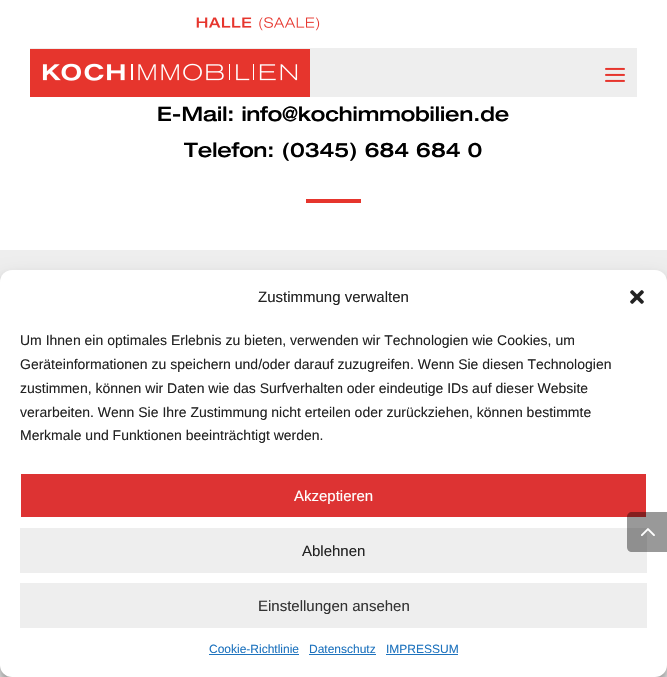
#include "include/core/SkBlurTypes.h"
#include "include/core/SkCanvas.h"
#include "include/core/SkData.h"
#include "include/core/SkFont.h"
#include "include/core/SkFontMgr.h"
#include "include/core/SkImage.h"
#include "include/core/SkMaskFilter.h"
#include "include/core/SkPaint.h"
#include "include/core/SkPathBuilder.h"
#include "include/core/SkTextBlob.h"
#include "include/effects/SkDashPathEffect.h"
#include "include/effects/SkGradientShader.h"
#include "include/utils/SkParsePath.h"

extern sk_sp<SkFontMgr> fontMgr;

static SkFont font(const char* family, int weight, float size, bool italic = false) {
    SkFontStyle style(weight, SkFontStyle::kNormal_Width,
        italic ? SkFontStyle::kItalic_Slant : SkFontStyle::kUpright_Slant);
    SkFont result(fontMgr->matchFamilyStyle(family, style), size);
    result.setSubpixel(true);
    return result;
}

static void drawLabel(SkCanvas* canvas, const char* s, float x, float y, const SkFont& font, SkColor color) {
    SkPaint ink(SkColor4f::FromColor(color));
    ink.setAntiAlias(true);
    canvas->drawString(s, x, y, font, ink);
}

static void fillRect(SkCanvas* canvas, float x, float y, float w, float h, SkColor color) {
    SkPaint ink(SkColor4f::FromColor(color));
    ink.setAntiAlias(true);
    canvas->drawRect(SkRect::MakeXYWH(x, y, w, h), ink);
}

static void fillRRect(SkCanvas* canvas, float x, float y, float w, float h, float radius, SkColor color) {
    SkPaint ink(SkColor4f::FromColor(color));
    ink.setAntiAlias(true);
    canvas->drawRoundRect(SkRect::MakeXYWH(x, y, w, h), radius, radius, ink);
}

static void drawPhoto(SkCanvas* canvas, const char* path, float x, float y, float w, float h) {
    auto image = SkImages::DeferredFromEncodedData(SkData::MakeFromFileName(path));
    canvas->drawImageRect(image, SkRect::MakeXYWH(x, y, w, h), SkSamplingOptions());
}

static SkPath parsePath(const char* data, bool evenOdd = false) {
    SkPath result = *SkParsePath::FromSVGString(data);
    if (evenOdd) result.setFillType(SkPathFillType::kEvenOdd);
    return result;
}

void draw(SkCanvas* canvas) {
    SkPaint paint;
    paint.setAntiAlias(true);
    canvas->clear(0xFFFFFFFF);
    drawPhoto(canvas, "assets/img1.png", 196, 17, 124, 14);
    fillRect(canvas, 30, 48, 607, 49, 0xFFEEEEEE);
    drawPhoto(canvas, "assets/img2.png", 30, 49, 280, 48);
    drawPhoto(canvas, "assets/img3.png", 605, 67, 20, 15);
    SkFont font1 = font("Helvetica Neue", 500, 20);
    drawLabel(canvas, "E-Mail: info@kochimmobilien.de", 157, 121, font1, 0xFF000000);
    drawLabel(canvas, "Telefon: (0345) 684 684 0", 184, 157, font1, 0xFF000000);
    fillRect(canvas, 306, 199, 55, 4, 0xFFE6352D);
    fillRect(canvas, 0, 250, 667, 427, 0xFFEEEEEE);
    paint.setColor(0x3B000000);
    paint.setMaskFilter(SkMaskFilter::MakeBlur(kNormal_SkBlurStyle, 3));
    canvas->drawRoundRect(SkRect::MakeXYWH(0, 276, 667, 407), 12, 12, paint);
    paint.setMaskFilter(nullptr);
    paint.setColor(0x30000000);
    paint.setMaskFilter(SkMaskFilter::MakeBlur(kNormal_SkBlurStyle, 10));
    canvas->drawRoundRect(SkRect::MakeXYWH(0, 280, 667, 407), 12, 12, paint);
    paint.setMaskFilter(nullptr);
    fillRRect(canvas, 0, 270, 667, 407, 12, 0xFFFFFFFF);
    SkFont font2 = font("Liberation Sans", 400, 15);
    drawLabel(canvas, "Zustimmung verwalten", 258, 302, font2, 0xFF222222);
    drawPhoto(canvas, "assets/img4.png", 630, 290, 14, 14);
    SkFont font3 = font("Liberation Sans", 400, 14);
    drawLabel(canvas, "Um Ihnen ein optimales Erlebnis zu bieten, verwenden wir Technologien wie Cookies, um", 20, 345, font3, 0xFF222222);
    drawLabel(canvas, "Geräteinformationen zu speichern und/oder darauf zuzugreifen. Wenn Sie diesen Technologien", 20, 369, font3, 0xFF222222);
    drawLabel(canvas, "zustimmen, können wir Daten wie das Surfverhalten oder eindeutige IDs auf dieser Website", 20, 393, font3, 0xFF222222);
    drawLabel(canvas, "verarbeiten. Wenn Sie Ihre Zustimmung nicht erteilen oder zurückziehen, können bestimmte", 20, 417, font3, 0xFF222222);
    drawLabel(canvas, "Merkmale und Funktionen beeinträchtigt werden.", 20, 440, font3, 0xFF222222);
    fillRect(canvas, 21, 474, 625, 43, 0xFFDD3333);
    drawLabel(canvas, "Akzeptieren", 294, 501, font2, 0xFFFFFFFF);
    fillRect(canvas, 20, 528, 627, 45, 0xFFEEEEEE);
    drawLabel(canvas, "Ablehnen", 302, 556, font2, 0xFF222222);
    fillRect(canvas, 20, 583, 627, 45, 0xFFEEEEEE);
    drawLabel(canvas, "Einstellungen ansehen", 258, 611, font2, 0xFF333333);
    SkFont font4 = font("Liberation Sans", 400, 12);
    drawLabel(canvas, "Cookie-Richtlinie", 209, 653, font4, 0xFF1E73BE);
    fillRect(canvas, 209, 654, 90, 1, 0xFF1E73BE);
    drawLabel(canvas, "Datenschutz", 309, 653, font4, 0xFF1E73BE);
    fillRect(canvas, 309, 654, 67, 1, 0xFF1E73BE);
    drawLabel(canvas, "IMPRESSUM", 386, 653, font4, 0xFF1E73BE);
    fillRect(canvas, 386, 654, 72, 1, 0xFF1E73BE);
    paint.setColor(0x66000000);
    canvas->drawPath(parsePath("M632 512H667V552H632C629 552 627 550 627 547V517C627 514 629 512 632 512Z"), paint);
    drawPhoto(canvas, "assets/img5.png", 641, 528, 14, 8);
}
